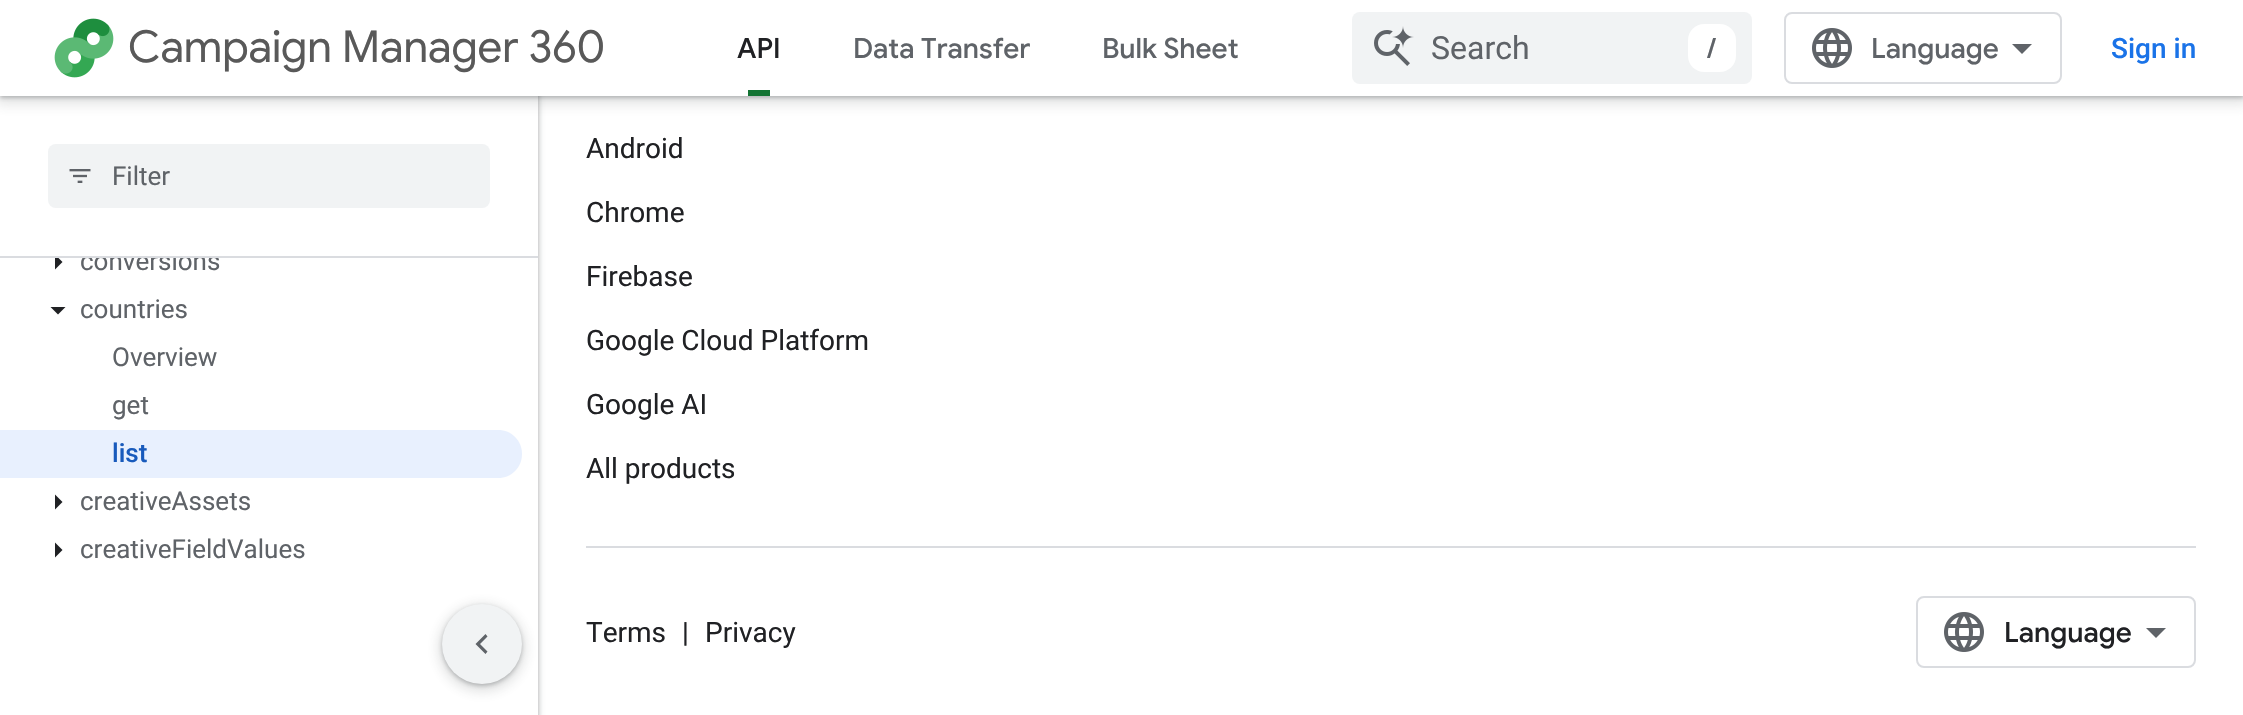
#include "include/core/SkBlurTypes.h"
#include "include/core/SkCanvas.h"
#include "include/core/SkData.h"
#include "include/core/SkFont.h"
#include "include/core/SkFontMgr.h"
#include "include/core/SkImage.h"
#include "include/core/SkMaskFilter.h"
#include "include/core/SkPaint.h"
#include "include/core/SkPathBuilder.h"
#include "include/core/SkTextBlob.h"
#include "include/effects/SkDashPathEffect.h"
#include "include/effects/SkGradientShader.h"
#include "include/utils/SkParsePath.h"

extern sk_sp<SkFontMgr> fontMgr;

static SkFont font(const char* family, int weight, float size, bool italic = false) {
    SkFontStyle style(weight, SkFontStyle::kNormal_Width,
        italic ? SkFontStyle::kItalic_Slant : SkFontStyle::kUpright_Slant);
    SkFont result(fontMgr->matchFamilyStyle(family, style), size);
    result.setSubpixel(true);
    return result;
}

static void drawLabel(SkCanvas* canvas, const char* s, float x, float y, const SkFont& font, SkColor color) {
    SkPaint ink(SkColor4f::FromColor(color));
    ink.setAntiAlias(true);
    canvas->drawString(s, x, y, font, ink);
}

static void fillRect(SkCanvas* canvas, float x, float y, float w, float h, SkColor color) {
    SkPaint ink(SkColor4f::FromColor(color));
    ink.setAntiAlias(true);
    canvas->drawRect(SkRect::MakeXYWH(x, y, w, h), ink);
}

static void fillRRect(SkCanvas* canvas, float x, float y, float w, float h, float radius, SkColor color) {
    SkPaint ink(SkColor4f::FromColor(color));
    ink.setAntiAlias(true);
    canvas->drawRoundRect(SkRect::MakeXYWH(x, y, w, h), radius, radius, ink);
}

static void drawPhoto(SkCanvas* canvas, const char* path, float x, float y, float w, float h) {
    auto image = SkImages::DeferredFromEncodedData(SkData::MakeFromFileName(path));
    canvas->drawImageRect(image, SkRect::MakeXYWH(x, y, w, h), SkSamplingOptions());
}

static SkPath parsePath(const char* data, bool evenOdd = false) {
    SkPath result = *SkParsePath::FromSVGString(data);
    if (evenOdd) result.setFillType(SkPathFillType::kEvenOdd);
    return result;
}

void draw(SkCanvas* canvas) {
    SkPaint paint;
    paint.setAntiAlias(true);
    canvas->clear(0xFFFFFFFF);
    paint.setColor(0x263C4043);
    paint.setMaskFilter(SkMaskFilter::MakeBlur(kNormal_SkBlurStyle, 3));
    canvas->drawRect(SkRect::MakeXYWH(-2, 0, 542, 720), paint);
    paint.setMaskFilter(nullptr);
    paint.setColor(0x4D3C4043);
    paint.setMaskFilter(SkMaskFilter::MakeBlur(kNormal_SkBlurStyle, 2));
    canvas->drawRect(SkRect::MakeXYWH(0, 2, 538, 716), paint);
    paint.setMaskFilter(nullptr);
    fillRect(canvas, 0, 258, 538, 457, 0xFFFFFFFF);
    paint.setColor(0xFF202124);
    canvas->drawPath(parsePath("M55 269.5V254.5L62.5 262Z"), paint);
    SkFont font1 = font("Roboto", 400, 26);
    drawLabel(canvas, "conversions", 80, 270, font1, 0xFF5F6368);
    fillRect(canvas, 0, 96, 538, 160, 0xFFFFFFFF);
    paint.setColor(0x263C4043);
    paint.setMaskFilter(SkMaskFilter::MakeBlur(kNormal_SkBlurStyle, 6));
    canvas->drawRect(SkRect::MakeXYWH(-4, -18, 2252, 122), paint);
    paint.setMaskFilter(nullptr);
    paint.setColor(0x4D3C4043);
    paint.setMaskFilter(SkMaskFilter::MakeBlur(kNormal_SkBlurStyle, 2));
    canvas->drawRect(SkRect::MakeXYWH(0, -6, 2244, 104), paint);
    paint.setMaskFilter(nullptr);
    fillRect(canvas, 0, 0, 2243, 96, 0xFFFFFFFF);
    drawPhoto(canvas, "assets/img1.png", 54, 18, 60, 60);
    SkFont font2 = font("Google Sans", 400, 44);
    drawLabel(canvas, "Campaign Manager 360", 128, 62, font2, 0xFF595959);
    SkFont font3 = font("Google Sans", 500, 28);
    drawLabel(canvas, "API", 737, 58, font3, 0xFF202124);
    fillRect(canvas, 748, 90, 22, 6, 0xFF137333);
    drawLabel(canvas, "Data Transfer", 853, 58, font3, 0xFF5F6368);
    drawLabel(canvas, "Bulk Sheet", 1102, 58, font3, 0xFF5F6368);
    fillRRect(canvas, 1352, 12, 400, 72, 8, 0xFFF1F3F4);
    drawPhoto(canvas, "assets/img2.png", 1374, 26, 40, 40);
    SkFont font4 = font("Roboto", 400, 32);
    drawLabel(canvas, "Search", 1431, 59, font4, 0xFF5F6368);
    fillRRect(canvas, 1688, 24, 48, 48, 16, 0xFFFFFFFF);
    drawLabel(canvas, "/", 1707, 58, font3, 0xFF5F6368);
    paint.setStroke(true);
    paint.setStrokeWidth(2);
    paint.setColor(0xFFDADCE0);
    canvas->drawRoundRect(SkRect::MakeXYWH(1785, 13, 276, 70), 7, 7, paint);
    drawPhoto(canvas, "assets/img3.png", 1812, 28, 40, 40);
    drawLabel(canvas, "Language", 1871, 58, font3, 0xFF5F6368);
    paint.setStroke(false);
    paint.setColor(0xFF5F6368);
    canvas->drawPath(parsePath("M2022 54L2012 44H2032Z"), paint);
    SkFont font5 = font("Roboto", 500, 28);
    drawLabel(canvas, "Sign in", 2111, 58, font5, 0xFF1A73E8);
    fillRect(canvas, 0, 256, 538, 2, 0xFFDADCE0);
    fillRRect(canvas, 48, 144, 442, 64, 8, 0xFFF1F3F4);
    drawPhoto(canvas, "assets/img4.png", 69, 169, 22, 14);
    drawLabel(canvas, "Filter", 112, 185, font1, 0xFF5F6368);
    paint.setColor(0xFF202124);
    canvas->drawPath(parsePath("M50.5 307H65.5L58 314.5Z"), paint);
    drawLabel(canvas, "countries", 80, 318, font1, 0xFF5F6368);
    drawLabel(canvas, "Overview", 112, 366, font1, 0xFF5F6368);
    drawLabel(canvas, "get", 112, 414, font1, 0xFF5F6368);
    paint.setColor(0xFFE8F0FE);
    canvas->drawPath(parsePath("M0 430H498C511.5 430 522 440.5 522 454C522 467.5 511.5 478 498 478H0Z"), paint);
    SkFont font6 = font("Roboto", 500, 26);
    drawLabel(canvas, "list", 112, 462, font6, 0xFF185ABC);
    paint.setColor(0xFF202124);
    canvas->drawPath(parsePath("M55 509.5V494.5L62.5 502Z"), paint);
    drawLabel(canvas, "creativeAssets", 80, 510, font1, 0xFF5F6368);
    canvas->drawPath(parsePath("M55 557.5V542.5L62.5 550Z"), paint);
    drawLabel(canvas, "creativeFieldValues", 80, 558, font1, 0xFF5F6368);
    fillRect(canvas, 586, 546, 1610, 2, 0xFFDADCE0);
    SkFont font7 = font("Roboto", 400, 28);
    drawLabel(canvas, "Android", 586, 158, font7, 0xFF202124);
    drawLabel(canvas, "Chrome", 586, 222, font7, 0xFF202124);
    drawLabel(canvas, "Firebase", 586, 286, font7, 0xFF202124);
    drawLabel(canvas, "Google Cloud Platform", 586, 350, font7, 0xFF202124);
    drawLabel(canvas, "Google AI", 586, 414, font7, 0xFF202124);
    drawLabel(canvas, "All products", 586, 478, font7, 0xFF202124);
    drawLabel(canvas, "Terms", 586, 642, font7, 0xFF202124);
    drawLabel(canvas, "|", 682, 642, font7, 0xFF202124);
    drawLabel(canvas, "Privacy", 705, 642, font7, 0xFF202124);
    paint.setStroke(true);
    paint.setColor(0xFFDADCE0);
    canvas->drawRoundRect(SkRect::MakeXYWH(1917, 597, 278, 70), 7, 7, paint);
    drawPhoto(canvas, "assets/img3.png", 1944, 612, 40, 40);
    drawLabel(canvas, "Language", 2004, 642, font3, 0xFF202124);
    paint.setStroke(false);
    paint.setColor(0xFF5F6368);
    canvas->drawPath(parsePath("M2156 638L2146 628H2166Z"), paint);
    paint.setColor(0x263C4043);
    paint.setMaskFilter(SkMaskFilter::MakeBlur(kNormal_SkBlurStyle, 6));
    canvas->drawRoundRect(SkRect::MakeXYWH(438, 604, 88, 88), 44, 44, paint);
    paint.setMaskFilter(nullptr);
    paint.setColor(0x4D3C4043);
    paint.setMaskFilter(SkMaskFilter::MakeBlur(kNormal_SkBlurStyle, 2));
    canvas->drawRoundRect(SkRect::MakeXYWH(442, 606, 80, 80), 40, 40, paint);
    paint.setMaskFilter(nullptr);
    paint.setColor(0xFFF1F3F4);
    canvas->drawCircle(482, 644, 40, paint);
    paint.setColor(0xFF5F6368);
    canvas->drawPath(parsePath("M487.5 636.5L480 644L487.5 651.5L485.5 654L475.5 644L485.5 634Z"), paint);
}
